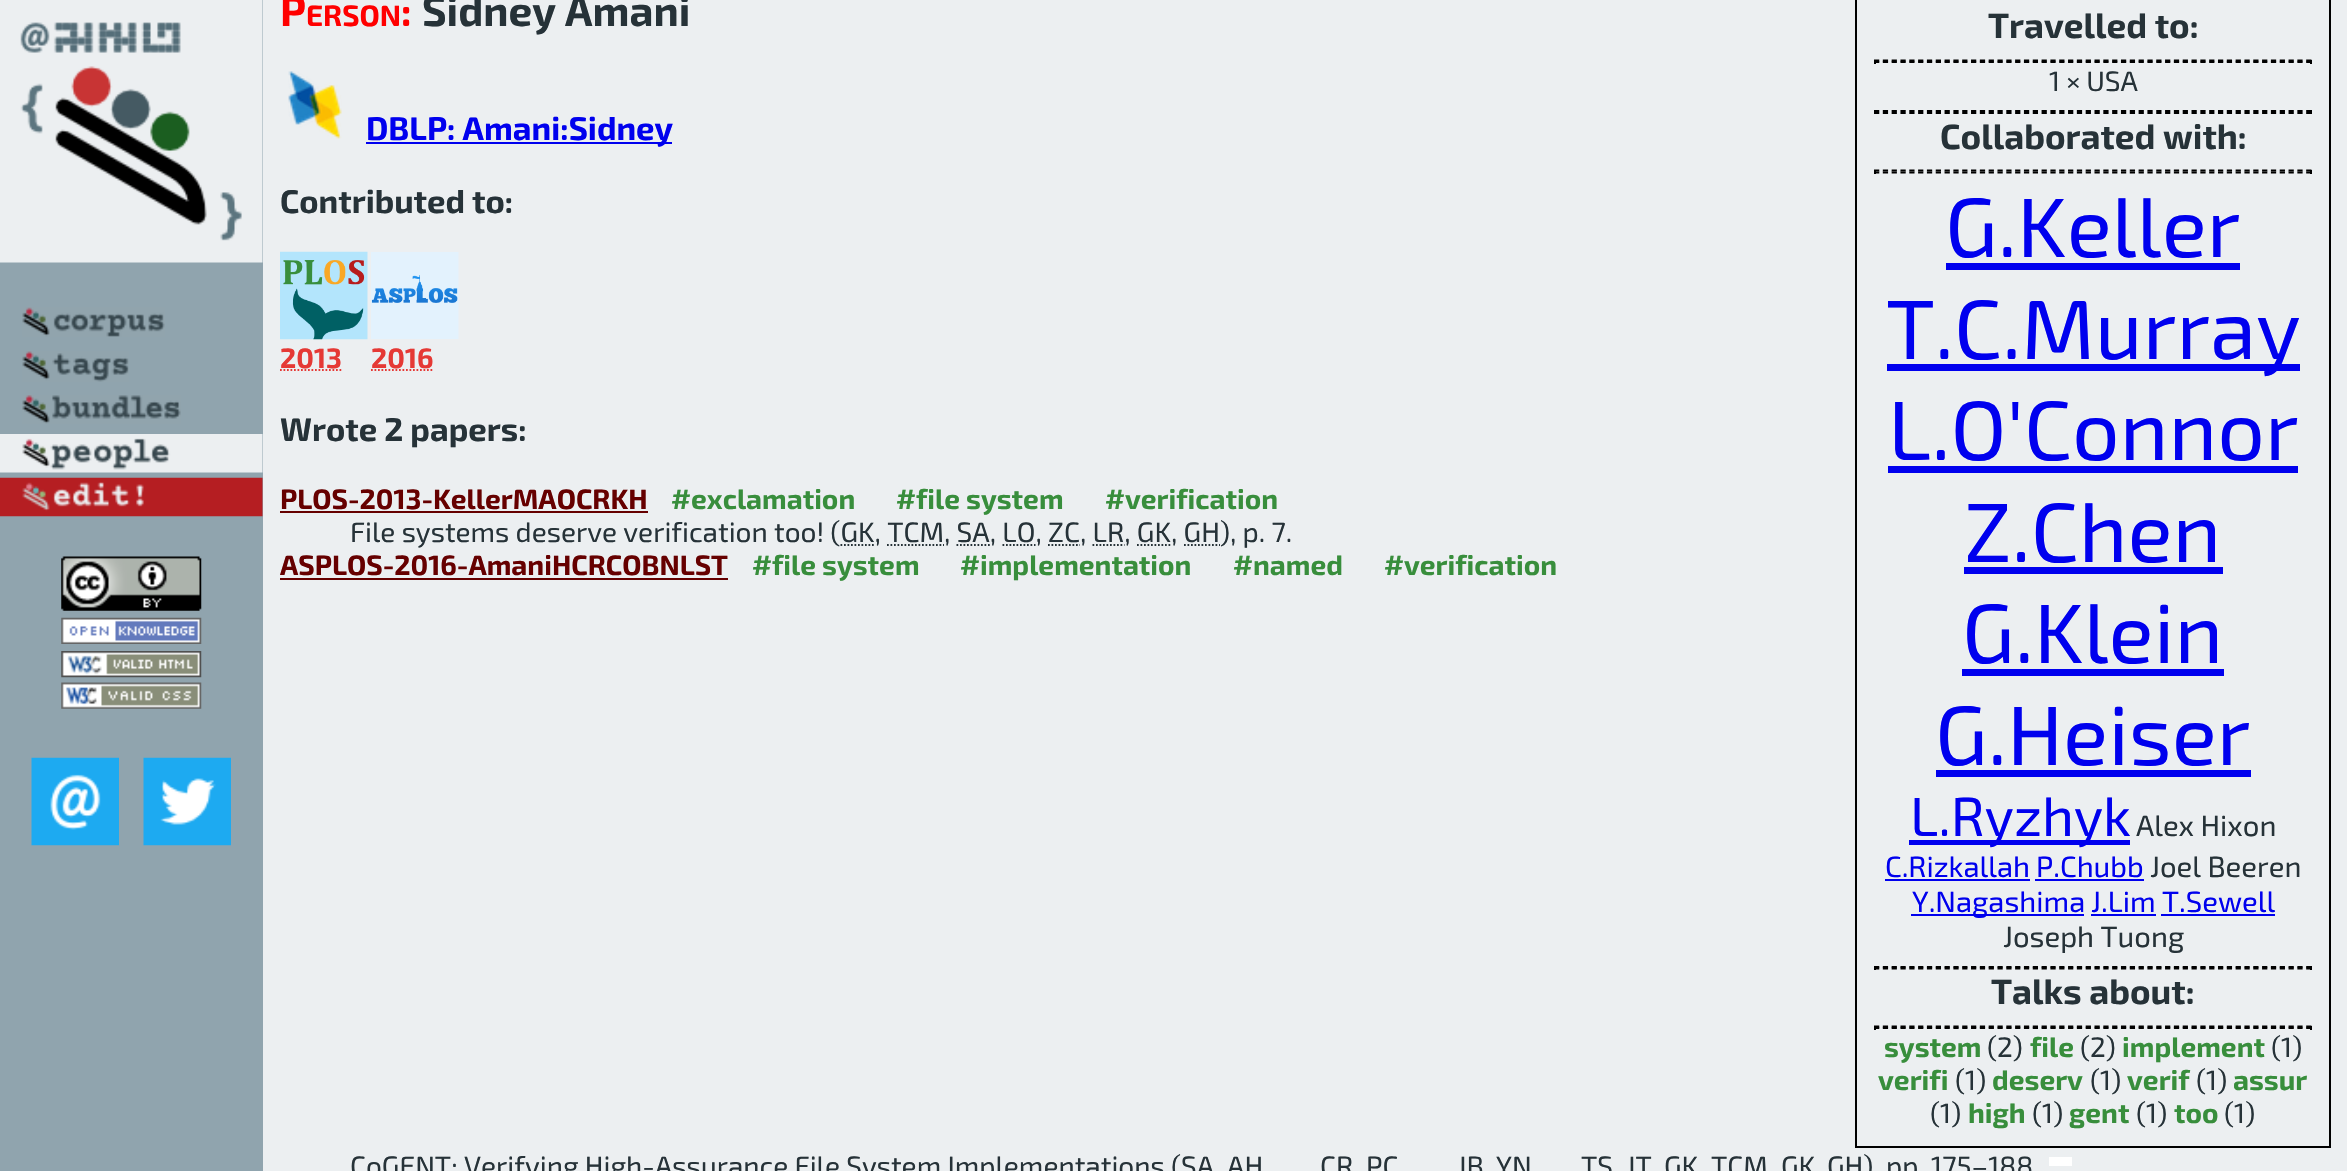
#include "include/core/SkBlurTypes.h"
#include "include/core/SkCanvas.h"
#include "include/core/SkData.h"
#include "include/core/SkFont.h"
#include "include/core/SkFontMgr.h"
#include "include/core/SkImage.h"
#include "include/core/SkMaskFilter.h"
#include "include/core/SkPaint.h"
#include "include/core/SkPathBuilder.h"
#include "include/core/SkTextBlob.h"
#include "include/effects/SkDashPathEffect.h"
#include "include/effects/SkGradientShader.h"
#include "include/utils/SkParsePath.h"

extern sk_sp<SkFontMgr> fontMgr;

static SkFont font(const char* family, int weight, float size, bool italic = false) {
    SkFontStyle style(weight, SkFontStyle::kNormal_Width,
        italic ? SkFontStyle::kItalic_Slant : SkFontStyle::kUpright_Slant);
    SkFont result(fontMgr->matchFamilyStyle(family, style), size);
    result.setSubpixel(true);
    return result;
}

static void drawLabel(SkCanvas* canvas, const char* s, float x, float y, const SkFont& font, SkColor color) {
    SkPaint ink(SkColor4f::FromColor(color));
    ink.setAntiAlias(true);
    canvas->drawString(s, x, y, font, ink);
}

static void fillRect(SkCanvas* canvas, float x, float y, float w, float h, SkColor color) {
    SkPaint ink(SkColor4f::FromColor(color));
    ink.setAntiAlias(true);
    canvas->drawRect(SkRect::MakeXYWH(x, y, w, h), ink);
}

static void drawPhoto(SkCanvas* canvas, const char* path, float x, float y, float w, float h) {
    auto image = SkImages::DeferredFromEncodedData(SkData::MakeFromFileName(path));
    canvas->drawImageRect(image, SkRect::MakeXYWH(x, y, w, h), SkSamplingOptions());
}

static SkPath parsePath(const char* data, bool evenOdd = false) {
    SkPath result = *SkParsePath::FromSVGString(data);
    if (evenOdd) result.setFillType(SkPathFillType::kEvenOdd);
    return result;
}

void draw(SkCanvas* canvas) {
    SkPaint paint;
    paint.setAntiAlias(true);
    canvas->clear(0xFFECEFF1);
    fillRect(canvas, 0, 0, 263, 1171, 0xFF90A4AE);
    drawPhoto(canvas, "assets/img1.png", 0, 0, 263, 263);
    drawPhoto(canvas, "assets/img2.png", 22, 307, 143, 30);
    drawPhoto(canvas, "assets/img3.png", 22, 351, 107, 31);
    drawPhoto(canvas, "assets/img4.png", 22, 395, 159, 29);
    drawPhoto(canvas, "assets/img5.png", 0, 434, 263, 39);
    drawPhoto(canvas, "assets/img6.png", 0, 477, 263, 40);
    drawPhoto(canvas, "assets/img7.png", 61, 556, 141, 55);
    drawPhoto(canvas, "assets/img8.png", 61, 617, 141, 27);
    drawPhoto(canvas, "assets/img9.png", 61, 651, 141, 27);
    drawPhoto(canvas, "assets/img10.png", 61, 682, 141, 27);
    drawPhoto(canvas, "assets/img11.png", 31, 757, 88, 89);
    drawPhoto(canvas, "assets/img12.png", 143, 757, 88, 89);
    SkFont font1 = font("Exo 2", 700, 42);
    drawLabel(canvas, "P", 280, 26, font1, 0xFFFF0000);
    SkFont font2 = font("Exo 2", 700, 29.5f);
    drawLabel(canvas, "ERSON", 306, 26, font2, 0xFFFF0000);
    drawLabel(canvas, ":", 401, 26, font1, 0xFFFF0000);
    drawLabel(canvas, "Sidney Amani", 422, 26, font1, 0xFF263238);
    paint.setStroke(true);
    paint.setStrokeWidth(2);
    paint.setColor(0xFF000000);
    canvas->drawRect(SkRect::MakeXYWH(1856, -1, 474, 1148), paint);
    SkFont font3 = font("Exo 2", 700, 35);
    drawLabel(canvas, "Travelled to:", 1988, 38, font3, 0xFF263238);
    paint.setStrokeWidth(1.8f);
    paint.setPathEffect(SkDashPathEffect::Make({{5.25f, 3.57f}}, 0));
    canvas->drawPath(parsePath("M1874 60.5H2312"), paint);
    paint.setPathEffect(nullptr);
    fillRect(canvas, 2310, 60, 2, 4, 0xFF000000);
    paint.setPathEffect(SkDashPathEffect::Make({{5.25f, 3.57f}}, 0));
    canvas->drawPath(parsePath("M1874 62H2312"), paint);
    paint.setPathEffect(nullptr);
    fillRect(canvas, 1874, 60, 2, 4, 0xFF000000);
    SkFont font4 = font("Exo 2", 400, 28);
    drawLabel(canvas, "1 × USA", 2049, 91, font4, 0xFF263238);
    paint.setPathEffect(SkDashPathEffect::Make({{5.25f, 3.57f}}, 0));
    canvas->drawPath(parsePath("M1874 111H2312"), paint);
    paint.setPathEffect(nullptr);
    fillRect(canvas, 2310, 110, 2, 4, 0xFF000000);
    paint.setPathEffect(SkDashPathEffect::Make({{5.25f, 3.57f}}, 0));
    canvas->drawPath(parsePath("M1874 113H2312"), paint);
    paint.setPathEffect(nullptr);
    fillRect(canvas, 1874, 110, 2, 4, 0xFF000000);
    drawLabel(canvas, "Collaborated with:", 1940, 149, font3, 0xFF263238);
    paint.setPathEffect(SkDashPathEffect::Make({{5.25f, 3.57f}}, 0));
    canvas->drawPath(parsePath("M1874 170.5H2312"), paint);
    paint.setPathEffect(nullptr);
    fillRect(canvas, 2310, 170, 2, 4, 0xFF000000);
    paint.setPathEffect(SkDashPathEffect::Make({{5.25f, 3.57f}}, 0));
    canvas->drawPath(parsePath("M1874 172.5H2312"), paint);
    paint.setPathEffect(nullptr);
    fillRect(canvas, 1874, 170, 2, 4, 0xFF000000);
    SkFont font5 = font("Exo 2", 400, 84);
    drawLabel(canvas, "G.Keller", 1945, 257, font5, 0xFF0000EE);
    fillRect(canvas, 1946, 263, 294, 7, 0xFF0000EE);
    fillRect(canvas, 1887, 364, 413, 7, 0xFF0000EE);
    drawLabel(canvas, "T.C.Murray", 1886, 359, font5, 0xFF0000EE);
    drawLabel(canvas, "L.O'Connor", 1888, 460, font5, 0xFF0000EE);
    fillRect(canvas, 1888, 466, 410, 7, 0xFF0000EE);
    drawLabel(canvas, "Z.Chen", 1964, 562, font5, 0xFF0000EE);
    fillRect(canvas, 1964, 567, 259, 7, 0xFF0000EE);
    drawLabel(canvas, "G.Klein", 1962, 663, font5, 0xFF0000EE);
    fillRect(canvas, 1962, 669, 262, 7, 0xFF0000EE);
    drawLabel(canvas, "G.Heiser", 1935, 765, font5, 0xFF0000EE);
    fillRect(canvas, 1936, 770, 315, 7, 0xFF0000EE);
    fillRect(canvas, 1909, 840, 221, 5, 0xFF0000EE);
    SkFont font6 = font("Exo 2", 400, 55);
    drawLabel(canvas, "L.Ryzhyk", 1910, 836, font6, 0xFF0000EE);
    SkFont font7 = font("Exo 2", 400, 29.25f);
    drawLabel(canvas, "Alex Hixon", 2136, 836, font7, 0xFF263238);
    drawLabel(canvas, "C.Rizkallah", 1885, 877, font7, 0xFF0000EE);
    fillRect(canvas, 1885, 879, 145, 2, 0xFF0000EE);
    drawLabel(canvas, "P.Chubb", 2036, 877, font7, 0xFF0000EE);
    fillRect(canvas, 2035, 879, 109, 2, 0xFF0000EE);
    drawLabel(canvas, "Joel Beeren", 2150, 877, font7, 0xFF263238);
    fillRect(canvas, 1911, 914, 173, 2, 0xFF0000EE);
    drawLabel(canvas, "Y.Nagashima", 1912, 912, font7, 0xFF0000EE);
    drawLabel(canvas, "J.Lim T.Sewell", 2091, 912, font7, 0xFF0000EE);
    fillRect(canvas, 2091, 914, 65, 2, 0xFF0000EE);
    fillRect(canvas, 2161, 914, 114, 2, 0xFF0000EE);
    drawLabel(canvas, "Joseph Tuong", 2003, 947, font7, 0xFF263238);
    paint.setPathEffect(SkDashPathEffect::Make({{5.25f, 3.57f}}, 0));
    canvas->drawPath(parsePath("M1874 967H2312"), paint);
    paint.setPathEffect(nullptr);
    fillRect(canvas, 2310, 966, 2, 4, 0xFF000000);
    paint.setPathEffect(SkDashPathEffect::Make({{5.25f, 3.57f}}, 0));
    canvas->drawPath(parsePath("M1874 968.5H2312"), paint);
    paint.setPathEffect(nullptr);
    fillRect(canvas, 1874, 966, 2, 4, 0xFF000000);
    drawLabel(canvas, "Talks about:", 1991, 1004, font3, 0xFF263238);
    paint.setPathEffect(SkDashPathEffect::Make({{5.25f, 3.57f}}, 0));
    canvas->drawPath(parsePath("M1874 1026.5H2312"), paint);
    paint.setPathEffect(nullptr);
    fillRect(canvas, 2310, 1026, 2, 4, 0xFF000000);
    paint.setPathEffect(SkDashPathEffect::Make({{5.25f, 3.57f}}, 0));
    canvas->drawPath(parsePath("M1874 1028H2312"), paint);
    paint.setPathEffect(nullptr);
    fillRect(canvas, 1874, 1026, 2, 4, 0xFF000000);
    SkFont font8 = font("Exo 2", 700, 28);
    drawLabel(canvas, "system", 1884, 1057, font8, 0xFF388E3C);
    drawLabel(canvas, "(2)", 1987, 1057, font4, 0xFF263238);
    drawLabel(canvas, "file", 2030, 1057, font8, 0xFF388E3C);
    drawLabel(canvas, "(2)", 2080, 1057, font4, 0xFF263238);
    drawLabel(canvas, "implement", 2122, 1057, font8, 0xFF388E3C);
    drawLabel(canvas, "(1)", 2271, 1057, font4, 0xFF263238);
    drawLabel(canvas, "verifi", 1878, 1090, font8, 0xFF388E3C);
    drawLabel(canvas, "(1)", 1955, 1090, font4, 0xFF263238);
    drawLabel(canvas, "deserv", 1992, 1090, font8, 0xFF388E3C);
    drawLabel(canvas, "(1)", 2090, 1090, font4, 0xFF263238);
    drawLabel(canvas, "verif", 2127, 1090, font8, 0xFF388E3C);
    drawLabel(canvas, "(1)", 2196, 1090, font4, 0xFF263238);
    drawLabel(canvas, "assur", 2233, 1090, font8, 0xFF388E3C);
    drawLabel(canvas, "(1)", 1930, 1123, font4, 0xFF263238);
    drawLabel(canvas, "high", 1968, 1123, font8, 0xFF388E3C);
    drawLabel(canvas, "(1)", 2032, 1123, font4, 0xFF263238);
    drawLabel(canvas, "gent", 2069, 1123, font8, 0xFF388E3C);
    drawLabel(canvas, "(1)", 2136, 1123, font4, 0xFF263238);
    drawLabel(canvas, "too", 2174, 1123, font8, 0xFF388E3C);
    drawLabel(canvas, "(1)", 2224, 1123, font4, 0xFF263238);
    drawPhoto(canvas, "assets/img13.png", 288, 71, 54, 68);
    fillRect(canvas, 366, 142, 306, 2, 0xFF0000EE);
    SkFont font9 = font("Exo 2", 700, 32.75f);
    drawLabel(canvas, "DBLP: Amani:Sidney", 366, 140, font9, 0xFF0000EE);
    drawLabel(canvas, "Contributed to:", 280, 213, font9, 0xFF263238);
    drawPhoto(canvas, "assets/img14.png", 280, 251, 88, 89);
    drawLabel(canvas, "2013", 280, 368, font8, 0xFFE53935);
    paint.setColor(0xFFE53935);
    paint.setPathEffect(SkDashPathEffect::Make({{1.75f, 1.75f}}, 0));
    canvas->drawPath(parsePath("M280 370H342"), paint);
    paint.setPathEffect(nullptr);
    drawPhoto(canvas, "assets/img15.png", 371, 252, 88, 87);
    drawLabel(canvas, "2016", 371, 368, font8, 0xFFE53935);
    paint.setPathEffect(SkDashPathEffect::Make({{1.75f, 1.75f}}, 0));
    canvas->drawPath(parsePath("M371 370H433.5"), paint);
    paint.setPathEffect(nullptr);
    drawLabel(canvas, "Wrote 2 papers:", 280, 441, font9, 0xFF263238);
    drawLabel(canvas, "PLOS-2013-KellerMAOCRKH", 280, 509, font8, 0xFF660000);
    fillRect(canvas, 280, 511, 368, 2, 0xFF660000);
    drawLabel(canvas, "#exclamation", 671, 509, font8, 0xFF388E3C);
    drawLabel(canvas, "#file system", 896, 509, font8, 0xFF388E3C);
    drawLabel(canvas, "#verification", 1105, 509, font8, 0xFF388E3C);
    drawLabel(canvas, "File systems deserve verification too! (GK, TCM, SA, LO, ZC, LR, GK, GH), p. 7.", 350, 542, font4, 0xFF263238);
    paint.setColor(0xFF263238);
    paint.setPathEffect(SkDashPathEffect::Make({{1.75f, 1.75f}}, 0));
    canvas->drawPath(parsePath("M840.5 545H874.5"), paint);
    paint.setPathEffect(nullptr);
    paint.setPathEffect(SkDashPathEffect::Make({{1.75f, 1.75f}}, 0));
    canvas->drawPath(parsePath("M887 545H944"), paint);
    paint.setPathEffect(nullptr);
    paint.setPathEffect(SkDashPathEffect::Make({{1.75f, 1.75f}}, 0));
    canvas->drawPath(parsePath("M956.5 545H990"), paint);
    paint.setPathEffect(nullptr);
    paint.setPathEffect(SkDashPathEffect::Make({{1.75f, 1.75f}}, 0));
    canvas->drawPath(parsePath("M1002.5 545H1035.5"), paint);
    paint.setPathEffect(nullptr);
    paint.setPathEffect(SkDashPathEffect::Make({{1.75f, 1.75f}}, 0));
    canvas->drawPath(parsePath("M1048 545H1080"), paint);
    paint.setPathEffect(nullptr);
    paint.setPathEffect(SkDashPathEffect::Make({{1.75f, 1.75f}}, 0));
    canvas->drawPath(parsePath("M1092.5 545H1124.5"), paint);
    paint.setPathEffect(nullptr);
    paint.setPathEffect(SkDashPathEffect::Make({{1.75f, 1.75f}}, 0));
    canvas->drawPath(parsePath("M1137 545H1171"), paint);
    paint.setPathEffect(nullptr);
    paint.setPathEffect(SkDashPathEffect::Make({{1.75f, 1.75f}}, 0));
    canvas->drawPath(parsePath("M1184 545H1220"), paint);
    paint.setPathEffect(nullptr);
    drawLabel(canvas, "ASPLOS-2016-AmaniHCRCOBNLST", 280, 575, font8, 0xFF660000);
    fillRect(canvas, 280, 578, 448, 2, 0xFF660000);
    drawLabel(canvas, "#file system", 752, 575, font8, 0xFF388E3C);
    drawLabel(canvas, "#implementation", 960, 575, font8, 0xFF388E3C);
    drawLabel(canvas, "#named", 1233, 575, font8, 0xFF388E3C);
    drawLabel(canvas, "#verification", 1384, 575, font8, 0xFF388E3C);
    drawLabel(canvas, "CoGENT: Verifying High-Assurance File System Implementations (SA", 350, 1176, font4, 0xFF263238);
    drawLabel(canvas, "AH", 1227, 1176, font4, 0xFF263238);
    drawLabel(canvas, "CR", 1320, 1176, font4, 0xFF263238);
    drawLabel(canvas, "PC", 1366, 1176, font4, 0xFF263238);
    drawLabel(canvas, "JB", 1457, 1176, font4, 0xFF263238);
    drawLabel(canvas, "YN", 1496, 1176, font4, 0xFF263238);
    drawLabel(canvas, "TS", 1581, 1176, font4, 0xFF263238);
    drawLabel(canvas, "JT", 1626, 1176, font4, 0xFF263238);
    drawLabel(canvas, "GK", 1664, 1176, font4, 0xFF263238);
    drawLabel(canvas, "TCM", 1711, 1176, font4, 0xFF263238);
    drawLabel(canvas, "GK", 1781, 1176, font4, 0xFF263238);
    drawLabel(canvas, "GH), pp. 175–188", 1827, 1176, font4, 0xFF263238);
    fillRect(canvas, 2049, 1157, 23, 9, 0xFFFFFFFF);
}
